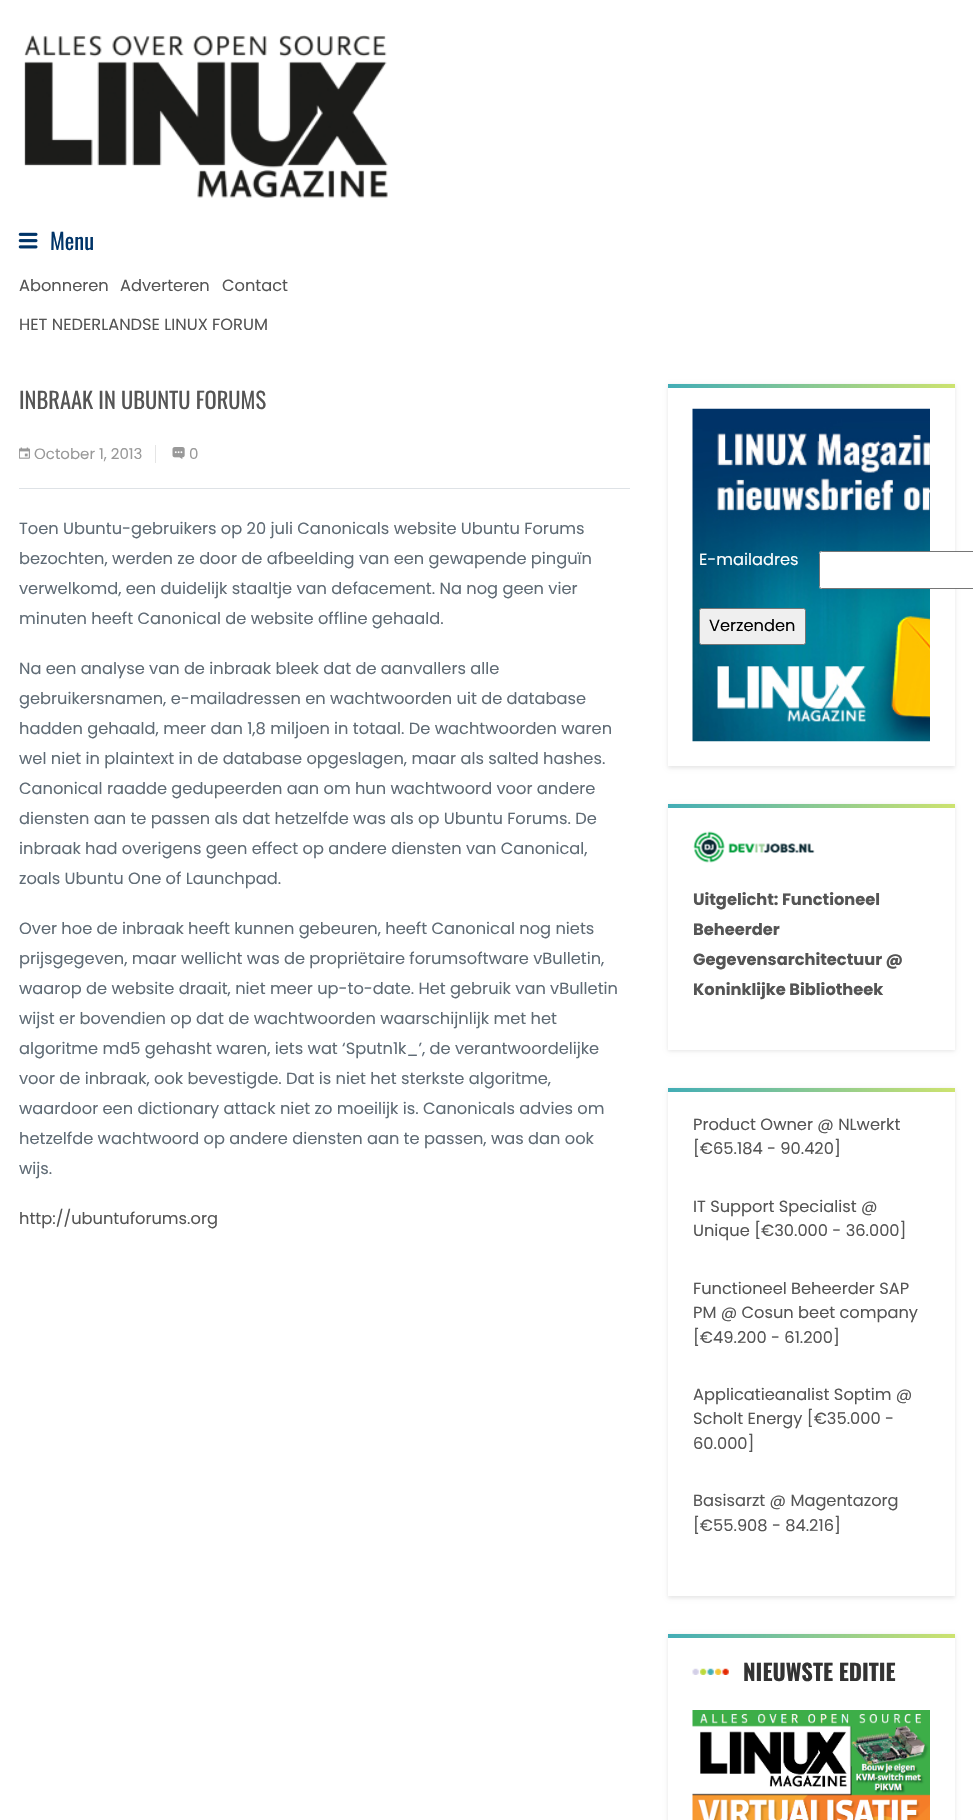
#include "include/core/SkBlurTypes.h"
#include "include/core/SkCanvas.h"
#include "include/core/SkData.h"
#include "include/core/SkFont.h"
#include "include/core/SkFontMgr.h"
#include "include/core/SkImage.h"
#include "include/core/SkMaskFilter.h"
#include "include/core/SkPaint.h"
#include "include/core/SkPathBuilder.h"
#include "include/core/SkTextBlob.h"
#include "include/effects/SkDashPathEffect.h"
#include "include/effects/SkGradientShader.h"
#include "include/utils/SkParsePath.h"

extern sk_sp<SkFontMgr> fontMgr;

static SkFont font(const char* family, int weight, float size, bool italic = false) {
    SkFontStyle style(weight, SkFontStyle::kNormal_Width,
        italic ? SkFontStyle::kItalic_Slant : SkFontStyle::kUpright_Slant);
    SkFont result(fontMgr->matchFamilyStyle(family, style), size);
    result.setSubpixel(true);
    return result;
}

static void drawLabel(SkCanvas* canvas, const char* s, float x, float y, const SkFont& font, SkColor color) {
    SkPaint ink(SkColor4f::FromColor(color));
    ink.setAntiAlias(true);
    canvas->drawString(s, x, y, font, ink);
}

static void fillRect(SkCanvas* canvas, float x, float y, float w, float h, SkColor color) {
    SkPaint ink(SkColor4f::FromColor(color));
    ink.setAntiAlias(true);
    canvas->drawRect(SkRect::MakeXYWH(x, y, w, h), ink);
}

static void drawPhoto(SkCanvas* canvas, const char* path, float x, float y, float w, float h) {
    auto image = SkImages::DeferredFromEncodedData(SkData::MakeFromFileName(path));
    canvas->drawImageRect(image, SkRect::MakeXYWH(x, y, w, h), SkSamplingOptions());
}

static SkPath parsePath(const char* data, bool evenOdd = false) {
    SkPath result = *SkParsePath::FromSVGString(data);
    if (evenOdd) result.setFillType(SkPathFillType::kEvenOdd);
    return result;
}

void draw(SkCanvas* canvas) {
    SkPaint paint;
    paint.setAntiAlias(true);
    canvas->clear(0xFFFFFFFF);
    drawPhoto(canvas, "assets/img1.png", 24, 35, 364, 163);
    drawPhoto(canvas, "assets/img2.png", 18, 232, 20, 17);
    SkFont font1 = font("Oswald", 400, 22.5f);
    drawLabel(canvas, "Menu", 50, 250, font1, 0xFF003468);
    SkFont font2 = font("Poppins", 400, 16.25f);
    drawLabel(canvas, "Abonneren", 19, 291, font2, 0xFF555555);
    drawLabel(canvas, "Adverteren", 120, 291, font2, 0xFF555555);
    drawLabel(canvas, "Contact", 222, 291, font2, 0xFF555555);
    drawLabel(canvas, "HET NEDERLANDSE LINUX FORUM", 19, 330, font2, 0xFF555555);
    fillRect(canvas, 19, 488, 611, 1, 0xFFDEE2E6);
    drawLabel(canvas, "INBRAAK IN UBUNTU FORUMS", 19, 409, font1, 0xFF555555);
    fillRect(canvas, 155, 445, 1, 18, 0xFFE5E5E5);
    drawPhoto(canvas, "assets/img3.png", 19, 447, 11, 12);
    SkFont font3 = font("Poppins", 400, 15);
    drawLabel(canvas, "October 1, 2013", 34, 459, font3, 0xFF999999);
    drawPhoto(canvas, "assets/img4.png", 172, 447, 13, 12);
    drawLabel(canvas, "0", 189, 459, font3, 0xFF999999);
    drawLabel(canvas, "Toen Ubuntu-gebruikers op 20 juli Canonicals website Ubuntu Forums", 19, 534, font2, 0xFF5F6B75);
    drawLabel(canvas, "bezochten, werden ze door de afbeelding van een gewapende pinguïn", 19, 564, font2, 0xFF5F6B75);
    drawLabel(canvas, "verwelkomd, een duidelijk staaltje van defacement. Na nog geen vier", 19, 594, font2, 0xFF5F6B75);
    drawLabel(canvas, "minuten heeft Canonical de website offline gehaald.", 19, 624, font2, 0xFF5F6B75);
    drawLabel(canvas, "Na een analyse van de inbraak bleek dat de aanvallers alle", 19, 674, font2, 0xFF5F6B75);
    drawLabel(canvas, "gebruikersnamen, e-mailadressen en wachtwoorden uit de database", 19, 704, font2, 0xFF5F6B75);
    drawLabel(canvas, "hadden gehaald, meer dan 1,8 miljoen in totaal. De wachtwoorden waren", 19, 734, font2, 0xFF5F6B75);
    drawLabel(canvas, "wel niet in plaintext in de database opgeslagen, maar als salted hashes.", 19, 764, font2, 0xFF5F6B75);
    drawLabel(canvas, "Canonical raadde gedupeerden aan om hun wachtwoord voor andere", 19, 794, font2, 0xFF5F6B75);
    drawLabel(canvas, "diensten aan te passen als dat hetzelfde was als op Ubuntu Forums. De", 19, 824, font2, 0xFF5F6B75);
    drawLabel(canvas, "inbraak had overigens geen effect op andere diensten van Canonical,", 19, 854, font2, 0xFF5F6B75);
    drawLabel(canvas, "zoals Ubuntu One of Launchpad.", 19, 884, font2, 0xFF5F6B75);
    drawLabel(canvas, "Over hoe de inbraak heeft kunnen gebeuren, heeft Canonical nog niets", 19, 934, font2, 0xFF5F6B75);
    drawLabel(canvas, "prijsgegeven, maar wellicht was de propriëtaire forumsoftware vBulletin,", 19, 964, font2, 0xFF5F6B75);
    drawLabel(canvas, "waarop de website draait, niet meer up-to-date. Het gebruik van vBulletin", 19, 994, font2, 0xFF5F6B75);
    drawLabel(canvas, "wijst er bovendien op dat de wachtwoorden waarschijnlijk met het", 19, 1024, font2, 0xFF5F6B75);
    drawLabel(canvas, "algoritme md5 gehasht waren, iets wat ‘Sputn1k_’, de verantwoordelijke", 19, 1054, font2, 0xFF5F6B75);
    drawLabel(canvas, "voor de inbraak, ook bevestigde. Dat is niet het sterkste algoritme,", 19, 1084, font2, 0xFF5F6B75);
    drawLabel(canvas, "waardoor een dictionary attack niet zo moeilijk is. Canonicals advies om", 19, 1114, font2, 0xFF5F6B75);
    drawLabel(canvas, "hetzelfde wachtwoord op andere diensten aan te passen, was dan ook", 19, 1144, font2, 0xFF5F6B75);
    drawLabel(canvas, "wijs.", 19, 1174, font2, 0xFF5F6B75);
    drawLabel(canvas, "http://ubuntuforums.org", 19, 1224, font2, 0xFF555555);
    canvas->save();
    canvas->clipPath(parsePath("M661 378H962V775H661ZM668 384H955V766H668Z", true), true);
    paint.setColor(0x1A000000);
    paint.setMaskFilter(SkMaskFilter::MakeBlur(kNormal_SkBlurStyle, 2));
    canvas->drawRect(SkRect::MakeXYWH(668, 385, 287, 383), paint);
    paint.setMaskFilter(nullptr);
    canvas->restore();
    {
        const SkColor colors[] = {0xFF42ADB6, 0xFFCDE36F};
        const float stops[] = {0, 1};
        const SkPoint ends[] = {{668, 386}, {955, 386}};
        paint.setShader(SkGradientShader::MakeLinear(ends, colors, stops, 2, SkTileMode::kClamp));
        paint.setAlpha(255);
    }
    canvas->drawRect(SkRect::MakeXYWH(668, 384, 287, 4), paint);
    drawPhoto(canvas, "assets/img5.png", 692, 408, 238, 334);
    drawLabel(canvas, "E-mailadres", 699, 565, font2, 0xFFFFFFFF);
    paint.setShader(nullptr);
    paint.setColor(0xFFFFFFFF);
    canvas->drawPath(parsePath("M821.5 551H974V589H821.5C820 589 819 588 819 586.5V553.5C819 552 820 551 821.5 551Z"), paint);
    paint.setStroke(true);
    paint.setStrokeWidth(1);
    paint.setColor(0xFF767676);
    canvas->drawRoundRect(SkRect::MakeXYWH(819.5f, 551.5f, 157, 37), 2, 2, paint);
    paint.setStroke(false);
    paint.setColor(0xFFEFEFEF);
    canvas->drawRoundRect(SkRect::MakeXYWH(699.5f, 608.5f, 106, 36), 2, 2, paint);
    paint.setStroke(true);
    paint.setColor(0xFF767676);
    canvas->drawRoundRect(SkRect::MakeXYWH(699.5f, 608.5f, 106, 36), 2, 2, paint);
    drawLabel(canvas, "Verzenden", 709, 631, font2, 0xFF000000);
    canvas->save();
    canvas->clipPath(parsePath("M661 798H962V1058H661ZM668 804H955V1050H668Z", true), true);
    paint.setStroke(false);
    paint.setColor(0x1A000000);
    paint.setMaskFilter(SkMaskFilter::MakeBlur(kNormal_SkBlurStyle, 2));
    canvas->drawRect(SkRect::MakeXYWH(668, 805, 287, 246), paint);
    paint.setMaskFilter(nullptr);
    canvas->restore();
    {
        const SkColor colors[] = {0xFF42ADB6, 0xFFCDE36F};
        const float stops[] = {0, 1};
        const SkPoint ends[] = {{668, 806}, {955, 806}};
        paint.setShader(SkGradientShader::MakeLinear(ends, colors, stops, 2, SkTileMode::kClamp));
        paint.setAlpha(255);
    }
    canvas->drawRect(SkRect::MakeXYWH(668, 804, 287, 4), paint);
    drawPhoto(canvas, "assets/img6.png", 693, 831, 122, 32);
    SkFont font4 = font("Poppins", 700, 16.25f);
    drawLabel(canvas, "Uitgelicht: Functioneel", 693, 905, font4, 0xFF555555);
    drawLabel(canvas, "Beheerder", 693, 935, font4, 0xFF555555);
    drawLabel(canvas, "Gegevensarchitectuur @", 693, 965, font4, 0xFF555555);
    drawLabel(canvas, "Koninklijke Bibliotheek", 693, 995, font4, 0xFF555555);
    canvas->save();
    canvas->clipPath(parsePath("M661 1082H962V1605H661ZM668 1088H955V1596H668Z", true), true);
    paint.setShader(nullptr);
    paint.setColor(0x1A000000);
    paint.setMaskFilter(SkMaskFilter::MakeBlur(kNormal_SkBlurStyle, 2));
    canvas->drawRect(SkRect::MakeXYWH(668, 1089, 287, 509), paint);
    paint.setMaskFilter(nullptr);
    canvas->restore();
    {
        const SkColor colors[] = {0xFF42ADB6, 0xFFCDE36F};
        const float stops[] = {0, 1};
        const SkPoint ends[] = {{668, 1089}, {955, 1089}};
        paint.setShader(SkGradientShader::MakeLinear(ends, colors, stops, 2, SkTileMode::kClamp));
        paint.setAlpha(255);
    }
    canvas->drawRect(SkRect::MakeXYWH(668, 1088, 287, 4), paint);
    drawLabel(canvas, "Product Owner @ NLwerkt", 693, 1130, font2, 0xFF555555);
    drawLabel(canvas, "[€65.184 - 90.420]", 693, 1154, font2, 0xFF555555);
    drawLabel(canvas, "IT Support Specialist @", 693, 1212, font2, 0xFF555555);
    drawLabel(canvas, "Unique [€30.000 - 36.000]", 693, 1236, font2, 0xFF555555);
    drawLabel(canvas, "Functioneel Beheerder SAP", 693, 1294, font2, 0xFF555555);
    drawLabel(canvas, "PM @ Cosun beet company", 693, 1318, font2, 0xFF555555);
    drawLabel(canvas, "[€49.200 - 61.200]", 693, 1343, font2, 0xFF555555);
    drawLabel(canvas, "Applicatieanalist Soptim @", 693, 1400, font2, 0xFF555555);
    drawLabel(canvas, "Scholt Energy [€35.000 -", 693, 1424, font2, 0xFF555555);
    drawLabel(canvas, "60.000]", 693, 1449, font2, 0xFF555555);
    drawLabel(canvas, "Basisarzt @ Magentazorg", 693, 1506, font2, 0xFF555555);
    drawLabel(canvas, "[€55.908 - 84.216]", 693, 1531, font2, 0xFF555555);
    canvas->save();
    canvas->clipPath(parsePath("M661 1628H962V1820H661ZM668 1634H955V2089H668Z", true), true);
    paint.setShader(nullptr);
    paint.setColor(0x1A000000);
    paint.setMaskFilter(SkMaskFilter::MakeBlur(kNormal_SkBlurStyle, 2));
    canvas->drawRect(SkRect::MakeXYWH(668, 1635, 287, 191), paint);
    paint.setMaskFilter(nullptr);
    canvas->restore();
    {
        const SkColor colors[] = {0xFF42ADB6, 0xFFCDE36F};
        const float stops[] = {0, 1};
        const SkPoint ends[] = {{668, 1636}, {955, 1636}};
        paint.setShader(SkGradientShader::MakeLinear(ends, colors, stops, 2, SkTileMode::kClamp));
        paint.setAlpha(255);
    }
    canvas->drawRect(SkRect::MakeXYWH(668, 1634, 287, 4), paint);
    drawPhoto(canvas, "assets/img7.png", 692, 1668, 37, 7);
    SkFont font5 = font("Oswald", 700, 22.5f);
    drawLabel(canvas, "NIEUWSTE EDITIE", 743, 1681, font5, 0xFF333333);
    drawPhoto(canvas, "assets/img8.png", 692, 1710, 238, 110);
}
